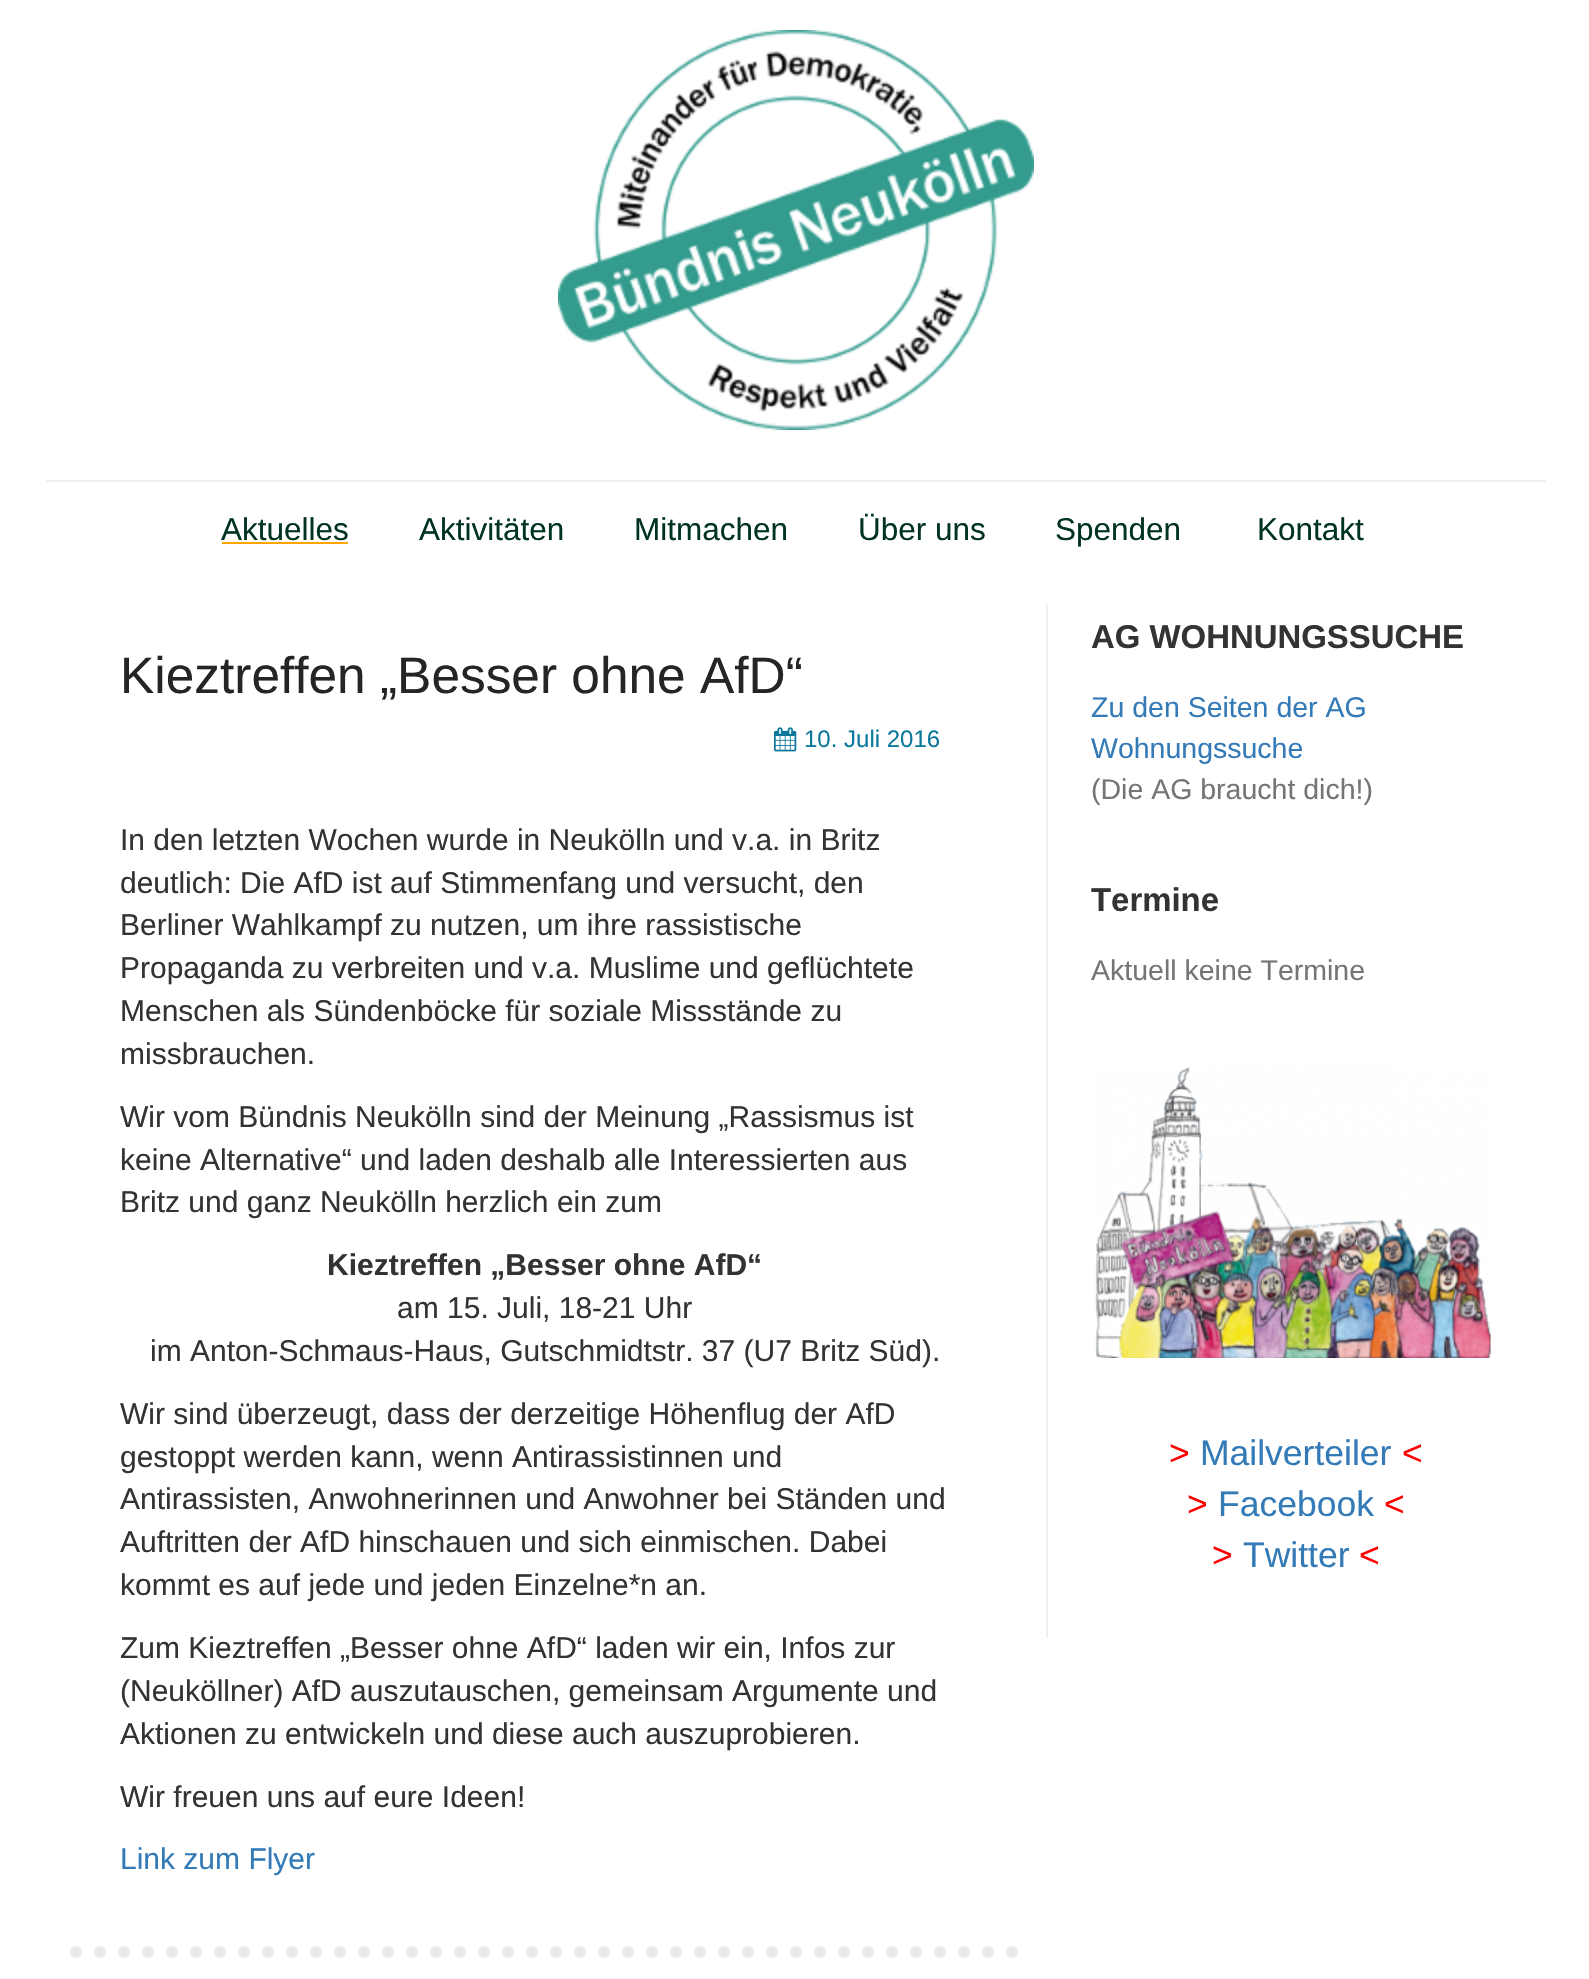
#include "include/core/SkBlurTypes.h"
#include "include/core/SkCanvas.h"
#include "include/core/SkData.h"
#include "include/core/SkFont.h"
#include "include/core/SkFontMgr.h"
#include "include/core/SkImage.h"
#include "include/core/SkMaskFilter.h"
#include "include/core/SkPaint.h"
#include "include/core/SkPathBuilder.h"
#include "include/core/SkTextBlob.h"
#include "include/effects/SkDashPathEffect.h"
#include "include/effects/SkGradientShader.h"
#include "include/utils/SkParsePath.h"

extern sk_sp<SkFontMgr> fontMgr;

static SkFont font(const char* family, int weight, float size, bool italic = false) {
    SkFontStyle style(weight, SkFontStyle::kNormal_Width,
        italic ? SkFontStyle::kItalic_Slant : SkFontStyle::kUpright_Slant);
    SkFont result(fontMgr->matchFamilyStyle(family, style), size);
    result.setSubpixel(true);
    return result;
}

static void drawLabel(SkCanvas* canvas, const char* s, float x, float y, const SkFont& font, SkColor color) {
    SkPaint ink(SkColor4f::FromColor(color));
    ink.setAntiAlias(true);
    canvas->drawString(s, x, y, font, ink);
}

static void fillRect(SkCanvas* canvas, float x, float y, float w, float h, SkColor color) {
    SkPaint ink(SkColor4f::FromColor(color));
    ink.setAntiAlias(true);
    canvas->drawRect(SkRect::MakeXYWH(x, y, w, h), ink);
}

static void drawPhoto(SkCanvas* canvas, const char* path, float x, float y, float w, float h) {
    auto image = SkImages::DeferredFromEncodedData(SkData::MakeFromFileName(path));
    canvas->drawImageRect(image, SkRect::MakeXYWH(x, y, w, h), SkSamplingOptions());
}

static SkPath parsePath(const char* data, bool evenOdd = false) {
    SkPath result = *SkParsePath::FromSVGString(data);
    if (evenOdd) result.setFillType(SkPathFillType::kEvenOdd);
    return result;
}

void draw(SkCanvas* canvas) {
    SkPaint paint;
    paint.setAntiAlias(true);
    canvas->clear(0xFFFFFFFF);
    drawPhoto(canvas, "assets/img1.png", 558, 30, 476, 400);
    fillRect(canvas, 46, 480, 1500, 2, 0xFFF0F0F0);
    SkFont font1 = font("Liberation Sans", 400, 31.5f);
    drawLabel(canvas, "Aktuelles", 221, 540, font1, 0xFF003322);
    fillRect(canvas, 222, 542, 126, 2, 0xFFFFA500);
    drawLabel(canvas, "Aktivitäten", 419, 540, font1, 0xFF003322);
    drawLabel(canvas, "Mitmachen", 634, 540, font1, 0xFF003322);
    drawLabel(canvas, "Über uns", 858, 540, font1, 0xFF003322);
    drawLabel(canvas, "Spenden", 1055, 540, font1, 0xFF003322);
    drawLabel(canvas, "Kontakt", 1257, 540, font1, 0xFF003322);
    SkFont font2 = font("Liberation Sans", 400, 51.4f);
    drawLabel(canvas, "Kieztreffen „Besser ohne AfD“", 120, 693, font2, 0xFF252525);
    drawPhoto(canvas, "assets/img2.png", 774, 727, 23, 25);
    SkFont font3 = font("Liberation Sans", 400, 24);
    drawLabel(canvas, "10. Juli 2016", 804, 747, font3, 0xFF0B789C);
    paint.setStroke(true);
    paint.setStrokeWidth(12);
    paint.setStrokeCap(SkPaint::kRound_Cap);
    paint.setColor(0xFFEAEAEA);
    paint.setPathEffect(SkDashPathEffect::Make({{0, 24}}, 0));
    canvas->drawPath(parsePath("M76 1952H1016"), paint);
    paint.setPathEffect(nullptr);
    SkFont font4 = font("Liberation Sans", 400, 30);
    drawLabel(canvas, "In den letzten Wochen wurde in Neukölln und v.a. in Britz", 120, 850, font4, 0xFF333333);
    drawLabel(canvas, "deutlich: Die AfD ist auf Stimmenfang und versucht, den", 120, 893, font4, 0xFF333333);
    drawLabel(canvas, "Berliner Wahlkampf zu nutzen, um ihre rassistische", 120, 935, font4, 0xFF333333);
    drawLabel(canvas, "Propaganda zu verbreiten und v.a. Muslime und geflüchtete", 120, 978, font4, 0xFF333333);
    drawLabel(canvas, "Menschen als Sündenböcke für soziale Missstände zu", 120, 1021, font4, 0xFF333333);
    drawLabel(canvas, "missbrauchen.", 120, 1064, font4, 0xFF333333);
    drawLabel(canvas, "Wir vom Bündnis Neukölln sind der Meinung „Rassismus ist", 120, 1127, font4, 0xFF333333);
    drawLabel(canvas, "keine Alternative“ und laden deshalb alle Interessierten aus", 120, 1170, font4, 0xFF333333);
    drawLabel(canvas, "Britz und ganz Neukölln herzlich ein zum", 120, 1212, font4, 0xFF333333);
    SkFont font5 = font("Liberation Sans", 700, 30);
    drawLabel(canvas, "Kieztreffen „Besser ohne AfD“", 327, 1275, font5, 0xFF333333);
    drawLabel(canvas, "am 15. Juli, 18-21 Uhr", 397, 1318, font4, 0xFF333333);
    drawLabel(canvas, "im Anton-Schmaus-Haus, Gutschmidtstr. 37 (U7 Britz Süd).", 150, 1361, font4, 0xFF333333);
    drawLabel(canvas, "Wir sind überzeugt, dass der derzeitige Höhenflug der AfD", 120, 1424, font4, 0xFF333333);
    drawLabel(canvas, "gestoppt werden kann, wenn Antirassistinnen und", 120, 1467, font4, 0xFF333333);
    drawLabel(canvas, "Antirassisten, Anwohnerinnen und Anwohner bei Ständen und", 120, 1509, font4, 0xFF333333);
    drawLabel(canvas, "Auftritten der AfD hinschauen und sich einmischen. Dabei", 120, 1552, font4, 0xFF333333);
    drawLabel(canvas, "kommt es auf jede und jeden Einzelne*n an.", 120, 1595, font4, 0xFF333333);
    drawLabel(canvas, "Zum Kieztreffen „Besser ohne AfD“ laden wir ein, Infos zur", 120, 1658, font4, 0xFF333333);
    drawLabel(canvas, "(Neuköllner) AfD auszutauschen, gemeinsam Argumente und", 120, 1701, font4, 0xFF333333);
    drawLabel(canvas, "Aktionen zu entwickeln und diese auch auszuprobieren.", 120, 1744, font4, 0xFF333333);
    drawLabel(canvas, "Wir freuen uns auf eure Ideen!", 120, 1807, font4, 0xFF333333);
    drawLabel(canvas, "Link zum Flyer", 120, 1869, font4, 0xFF337AB7);
    fillRect(canvas, 1046, 604, 2, 1034, 0xFFF0F0F0);
    SkFont font6 = font("Liberation Sans", 700, 32.9f);
    drawLabel(canvas, "AG WOHNUNGSSUCHE", 1091, 648, font6, 0xFF333333);
    SkFont font7 = font("Liberation Sans", 400, 28.5f);
    drawLabel(canvas, "Zu den Seiten der AG", 1091, 717, font7, 0xFF337AB7);
    drawLabel(canvas, "Wohnungssuche", 1091, 758, font7, 0xFF337AB7);
    drawLabel(canvas, "(Die AG braucht dich!)", 1091, 799, font7, 0xFF757575);
    drawLabel(canvas, "Termine", 1091, 911, font6, 0xFF333333);
    drawLabel(canvas, "Aktuell keine Termine", 1091, 980, font7, 0xFF757575);
    drawPhoto(canvas, "assets/img3.png", 1094, 1067, 398, 291);
    SkFont font8 = font("Liberation Sans", 400, 35.5f);
    drawLabel(canvas, ">", 1169, 1465, font8, 0xFFFF0000);
    drawLabel(canvas, "Mailverteiler", 1200, 1465, font8, 0xFF337AB7);
    drawLabel(canvas, "<", 1402, 1465, font8, 0xFFFF0000);
    drawLabel(canvas, ">", 1187, 1516, font8, 0xFFFF0000);
    drawLabel(canvas, "Facebook", 1218, 1516, font8, 0xFF337AB7);
    drawLabel(canvas, "<", 1384, 1516, font8, 0xFFFF0000);
    drawLabel(canvas, ">", 1212, 1567, font8, 0xFFFF0000);
    drawLabel(canvas, "Twitter", 1243, 1567, font8, 0xFF337AB7);
    drawLabel(canvas, "<", 1359, 1567, font8, 0xFFFF0000);
}
